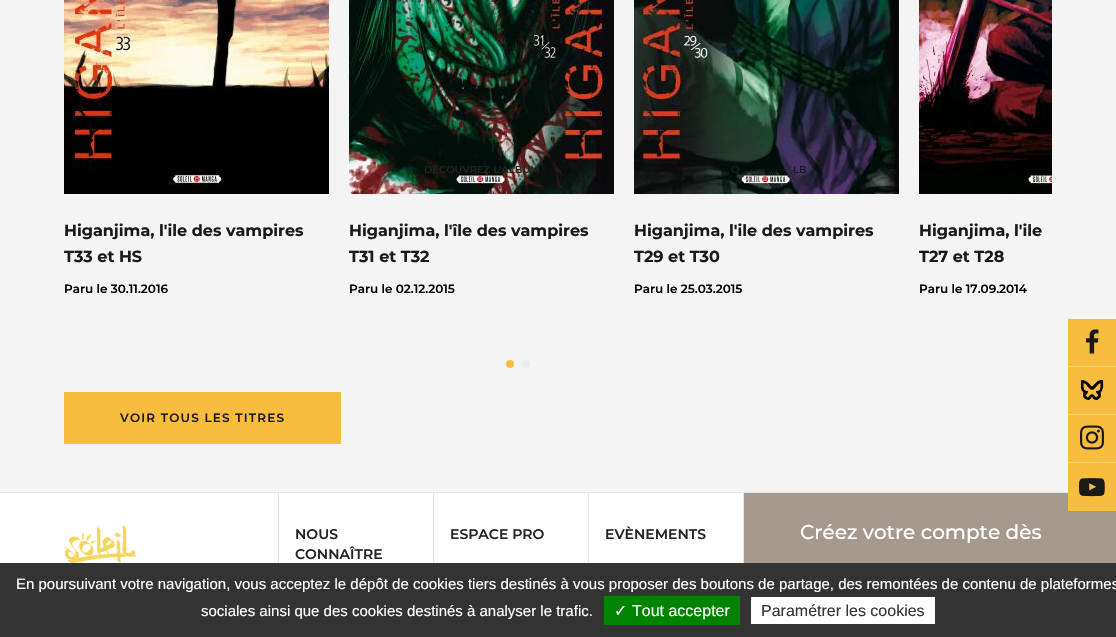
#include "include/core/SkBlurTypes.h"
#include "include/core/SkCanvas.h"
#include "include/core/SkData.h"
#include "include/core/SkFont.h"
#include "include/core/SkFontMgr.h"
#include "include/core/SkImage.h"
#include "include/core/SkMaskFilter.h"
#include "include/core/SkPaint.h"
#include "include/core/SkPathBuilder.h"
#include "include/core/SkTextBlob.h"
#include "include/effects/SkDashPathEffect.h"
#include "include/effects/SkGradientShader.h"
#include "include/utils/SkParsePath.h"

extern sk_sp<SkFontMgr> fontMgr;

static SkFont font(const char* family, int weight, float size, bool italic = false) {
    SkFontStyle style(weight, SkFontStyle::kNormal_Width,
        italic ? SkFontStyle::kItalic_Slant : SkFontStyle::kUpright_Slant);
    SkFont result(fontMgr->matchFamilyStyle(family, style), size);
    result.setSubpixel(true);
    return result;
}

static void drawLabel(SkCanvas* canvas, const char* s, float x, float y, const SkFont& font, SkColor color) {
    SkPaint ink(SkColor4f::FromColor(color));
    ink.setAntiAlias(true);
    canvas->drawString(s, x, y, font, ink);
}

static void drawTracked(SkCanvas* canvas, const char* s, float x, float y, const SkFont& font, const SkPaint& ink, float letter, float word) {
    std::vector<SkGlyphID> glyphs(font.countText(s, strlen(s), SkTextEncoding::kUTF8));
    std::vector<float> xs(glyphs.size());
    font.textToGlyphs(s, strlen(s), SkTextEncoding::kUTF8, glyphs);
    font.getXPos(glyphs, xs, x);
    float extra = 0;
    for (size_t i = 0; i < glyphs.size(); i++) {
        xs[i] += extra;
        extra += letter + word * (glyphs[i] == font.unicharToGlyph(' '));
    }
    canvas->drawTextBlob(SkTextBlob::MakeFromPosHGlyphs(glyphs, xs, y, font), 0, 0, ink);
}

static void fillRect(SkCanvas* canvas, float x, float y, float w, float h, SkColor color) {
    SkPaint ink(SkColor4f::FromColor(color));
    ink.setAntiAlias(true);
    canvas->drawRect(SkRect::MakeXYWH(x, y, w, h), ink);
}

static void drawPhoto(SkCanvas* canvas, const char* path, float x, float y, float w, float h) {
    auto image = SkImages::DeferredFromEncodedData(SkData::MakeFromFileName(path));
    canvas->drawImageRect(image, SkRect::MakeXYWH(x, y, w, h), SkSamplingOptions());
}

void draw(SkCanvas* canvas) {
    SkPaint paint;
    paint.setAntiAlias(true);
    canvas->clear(0xFFF4F4F4);
    drawPhoto(canvas, "assets/img1.png", 64, 0, 265, 194);
    SkFont font1 = font("Montserrat", 700, 16);
    drawLabel(canvas, "Higanjima, l'ile des vampires", 64, 236, font1, 0xFF1A1A1A);
    drawLabel(canvas, "T33 et HS", 64, 262, font1, 0xFF1A1A1A);
    SkFont font2 = font("Montserrat", 600, 12);
    drawLabel(canvas, "Paru le 30.11.2016", 64, 293, font2, 0xFF000000);
    drawPhoto(canvas, "assets/img2.png", 349, 0, 265, 194);
    SkFont font3 = font("Montserrat", 600, 10);
    drawLabel(canvas, "DÉCOUVREZ L'ALBUM", 424, 173, font3, 0xFF21241F);
    drawLabel(canvas, "Higanjima, l'île des vampires", 349, 236, font1, 0xFF1A1A1A);
    drawLabel(canvas, "T31 et T32", 349, 262, font1, 0xFF1A1A1A);
    drawLabel(canvas, "Paru le 02.12.2015", 349, 293, font2, 0xFF000000);
    drawPhoto(canvas, "assets/img3.png", 634, 0, 265, 194);
    drawLabel(canvas, "O", 731, 173, font3, 0xFF171C24);
    drawLabel(canvas, "LB", 793, 173, font3, 0xFF171C24);
    drawLabel(canvas, "Higanjima, l'ile des vampires", 634, 236, font1, 0xFF1A1A1A);
    drawLabel(canvas, "T29 et T30", 634, 262, font1, 0xFF1A1A1A);
    drawLabel(canvas, "Paru le 25.03.2015", 634, 293, font2, 0xFF000000);
    drawPhoto(canvas, "assets/img4.png", 919, 0, 133, 194);
    drawLabel(canvas, "Higanjima, l'ile", 919, 236, font1, 0xFF1A1A1A);
    drawLabel(canvas, "T27 et T28", 919, 262, font1, 0xFF1A1A1A);
    drawLabel(canvas, "Paru le 17.09.2014", 919, 293, font2, 0xFF000000);
    paint.setColor(0xFFF8BD3F);
    canvas->drawCircle(510, 364, 4, paint);
    paint.setColor(0xFFEEEDEB);
    canvas->drawCircle(526, 364, 4, paint);
    fillRect(canvas, 64, 392, 277, 52, 0xFFF8BD3F);
    paint.setColor(0xFF1A1A1A);
    drawTracked(canvas, "VOIR TOUS LES TITRES", 120, 422, font2, paint, 1.2f, 0);
    fillRect(canvas, 744, 493, 372, 70, 0xFFA5988D);
    fillRect(canvas, 1068, 319, 48, 192, 0xFFF8BD3F);
    fillRect(canvas, 1068, 366, 48, 1, 0xFFFAD179);
    drawPhoto(canvas, "assets/img5.png", 1086, 329, 13, 25);
    drawPhoto(canvas, "assets/img6.png", 1080, 379, 24, 21);
    fillRect(canvas, 1068, 414, 48, 1, 0xFFFAD179);
    fillRect(canvas, 1068, 462, 48, 1, 0xFFFAD179);
    drawPhoto(canvas, "assets/img7.png", 1080, 425, 24, 25);
    drawPhoto(canvas, "assets/img8.png", 1079, 478, 26, 19);
    fillRect(canvas, 0, 492, 1068, 1, 0xFFE3E4E5);
    fillRect(canvas, 0, 493, 743, 70, 0xFFFFFFFF);
    fillRect(canvas, 278, 493, 1, 70, 0xFFE3E4E5);
    drawPhoto(canvas, "assets/img9.png", 64, 525, 73, 38);
    fillRect(canvas, 433, 493, 1, 70, 0xFFE3E4E5);
    SkFont font4 = font("Montserrat", 600, 14);
    drawLabel(canvas, "NOUS", 295, 539, font4, 0xFF212529);
    drawLabel(canvas, "CONNAÎTRE", 295, 559, font4, 0xFF212529);
    fillRect(canvas, 588, 493, 1, 70, 0xFFE3E4E5);
    drawLabel(canvas, "ESPACE PRO", 450, 539, font4, 0xFF212529);
    fillRect(canvas, 743, 493, 1, 70, 0xFFE3E4E5);
    drawLabel(canvas, "EVÈNEMENTS", 605, 539, font4, 0xFF212529);
    SkFont font5 = font("Montserrat", 500, 20);
    drawLabel(canvas, "Créez votre compte dès", 800, 539, font5, 0xFFFFFFFF);
    fillRect(canvas, 0, 563, 1116, 74, 0xFF333333);
    SkFont font6 = font("Liberation Sans", 400, 15);
    drawLabel(canvas, "En poursuivant votre navigation, vous acceptez le dépôt de cookies tiers destinés à vous proposer des boutons de partage, des remontées de contenu de plateformes", 16, 589, font6, 0xFFFFFFFF);
    drawLabel(canvas, "sociales ainsi que des cookies destinés à analyser le trafic.", 201, 616, font6, 0xFFFFFFFF);
    fillRect(canvas, 604, 596, 136, 29, 0xFF008300);
    SkFont font7 = font("DejaVu Sans", 400, 16);
    drawLabel(canvas, "✓", 614, 616, font7, 0xFFFFFFFF);
    SkFont font8 = font("Liberation Sans", 400, 16);
    drawLabel(canvas, "Tout accepter", 632, 616, font8, 0xFFFFFFFF);
    fillRect(canvas, 751, 597, 184, 27, 0xFFFFFFFF);
    drawLabel(canvas, "Paramétrer les cookies", 761, 616, font8, 0xFF333333);
}
